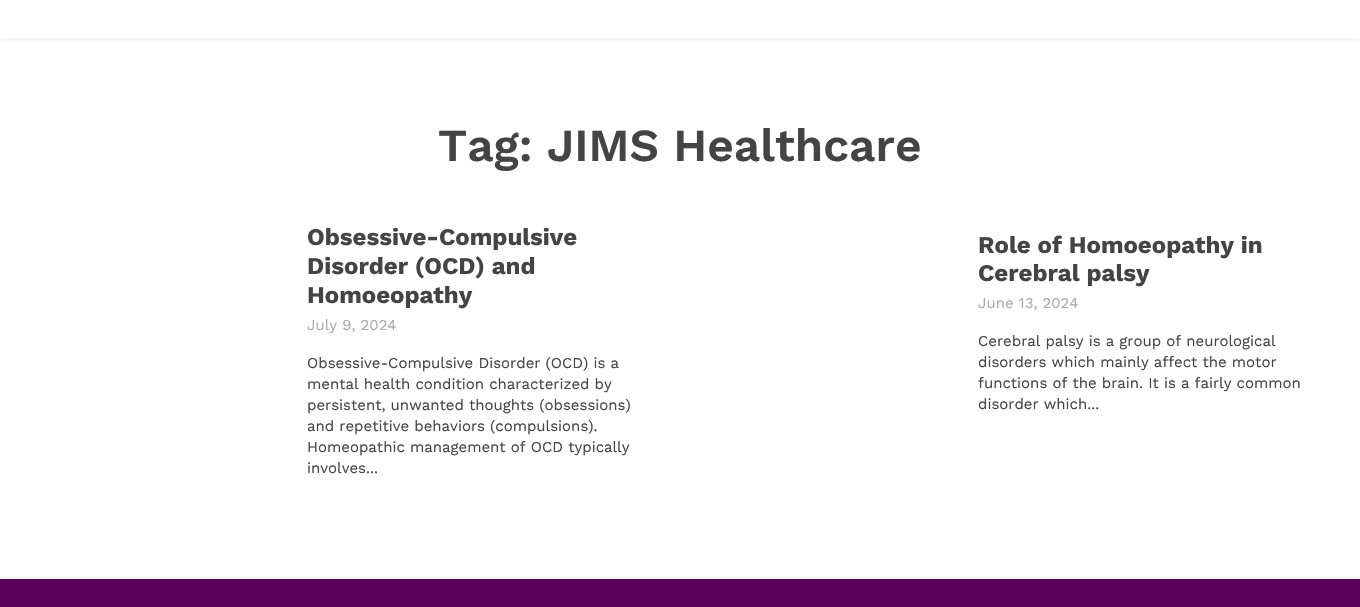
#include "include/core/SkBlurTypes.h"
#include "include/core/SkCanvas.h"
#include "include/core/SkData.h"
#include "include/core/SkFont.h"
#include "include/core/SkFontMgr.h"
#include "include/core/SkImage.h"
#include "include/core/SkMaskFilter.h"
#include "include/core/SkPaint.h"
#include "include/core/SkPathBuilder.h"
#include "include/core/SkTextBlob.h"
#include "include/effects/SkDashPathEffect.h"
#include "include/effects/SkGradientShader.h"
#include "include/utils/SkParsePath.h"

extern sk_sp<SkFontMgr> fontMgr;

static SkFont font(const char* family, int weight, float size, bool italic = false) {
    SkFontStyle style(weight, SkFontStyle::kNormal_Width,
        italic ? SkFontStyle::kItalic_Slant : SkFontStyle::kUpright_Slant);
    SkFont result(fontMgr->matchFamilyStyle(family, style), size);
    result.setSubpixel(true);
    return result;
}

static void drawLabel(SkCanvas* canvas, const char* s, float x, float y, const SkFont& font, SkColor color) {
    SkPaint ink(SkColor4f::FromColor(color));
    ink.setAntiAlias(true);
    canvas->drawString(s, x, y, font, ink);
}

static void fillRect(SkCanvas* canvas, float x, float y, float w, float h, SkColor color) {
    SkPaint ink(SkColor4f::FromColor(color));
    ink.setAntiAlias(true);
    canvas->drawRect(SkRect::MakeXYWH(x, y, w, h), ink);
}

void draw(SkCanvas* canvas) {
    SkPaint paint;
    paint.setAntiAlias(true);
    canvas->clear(0xFFFFFFFF);
    canvas->save();
    canvas->clipRect(SkRect::MakeXYWH(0, 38, 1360, 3));
    paint.setColor(0x0F000000);
    paint.setMaskFilter(SkMaskFilter::MakeBlur(kNormal_SkBlurStyle, 2));
    canvas->drawRect(SkRect::MakeXYWH(0, -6, 1360, 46), paint);
    paint.setMaskFilter(nullptr);
    canvas->restore();
    SkFont font1 = font("Work Sans", 600, 46);
    drawLabel(canvas, "Tag: JIMS Healthcare", 438, 161, font1, 0xFF444444);
    SkFont font2 = font("Work Sans", 700, 24);
    drawLabel(canvas, "Obsessive-Compulsive", 307, 245, font2, 0xFF444444);
    drawLabel(canvas, "Disorder (OCD) and", 307, 274, font2, 0xFF444444);
    drawLabel(canvas, "Homoeopathy", 307, 303, font2, 0xFF444444);
    SkFont font3 = font("Work Sans", 400, 15);
    drawLabel(canvas, "July 9, 2024", 307, 330, font3, 0xFFAAAAAA);
    drawLabel(canvas, "Obsessive-Compulsive Disorder (OCD) is a", 307, 368, font3, 0xFF444444);
    drawLabel(canvas, "mental health condition characterized by", 307, 389, font3, 0xFF444444);
    drawLabel(canvas, "persistent, unwanted thoughts (obsessions)", 307, 410, font3, 0xFF444444);
    drawLabel(canvas, "and repetitive behaviors (compulsions).", 307, 431, font3, 0xFF444444);
    drawLabel(canvas, "Homeopathic management of OCD typically", 307, 452, font3, 0xFF444444);
    drawLabel(canvas, "involves...", 307, 473, font3, 0xFF444444);
    drawLabel(canvas, "Role of Homoeopathy in", 978, 253, font2, 0xFF444444);
    drawLabel(canvas, "Cerebral palsy", 978, 281, font2, 0xFF444444);
    drawLabel(canvas, "June 13, 2024", 978, 308, font3, 0xFFAAAAAA);
    drawLabel(canvas, "Cerebral palsy is a group of neurological", 978, 346, font3, 0xFF444444);
    drawLabel(canvas, "disorders which mainly affect the motor", 978, 367, font3, 0xFF444444);
    drawLabel(canvas, "functions of the brain. It is a fairly common", 978, 388, font3, 0xFF444444);
    drawLabel(canvas, "disorder which...", 978, 409, font3, 0xFF444444);
    fillRect(canvas, 0, 579, 1360, 28, 0xFF5B005B);
}
